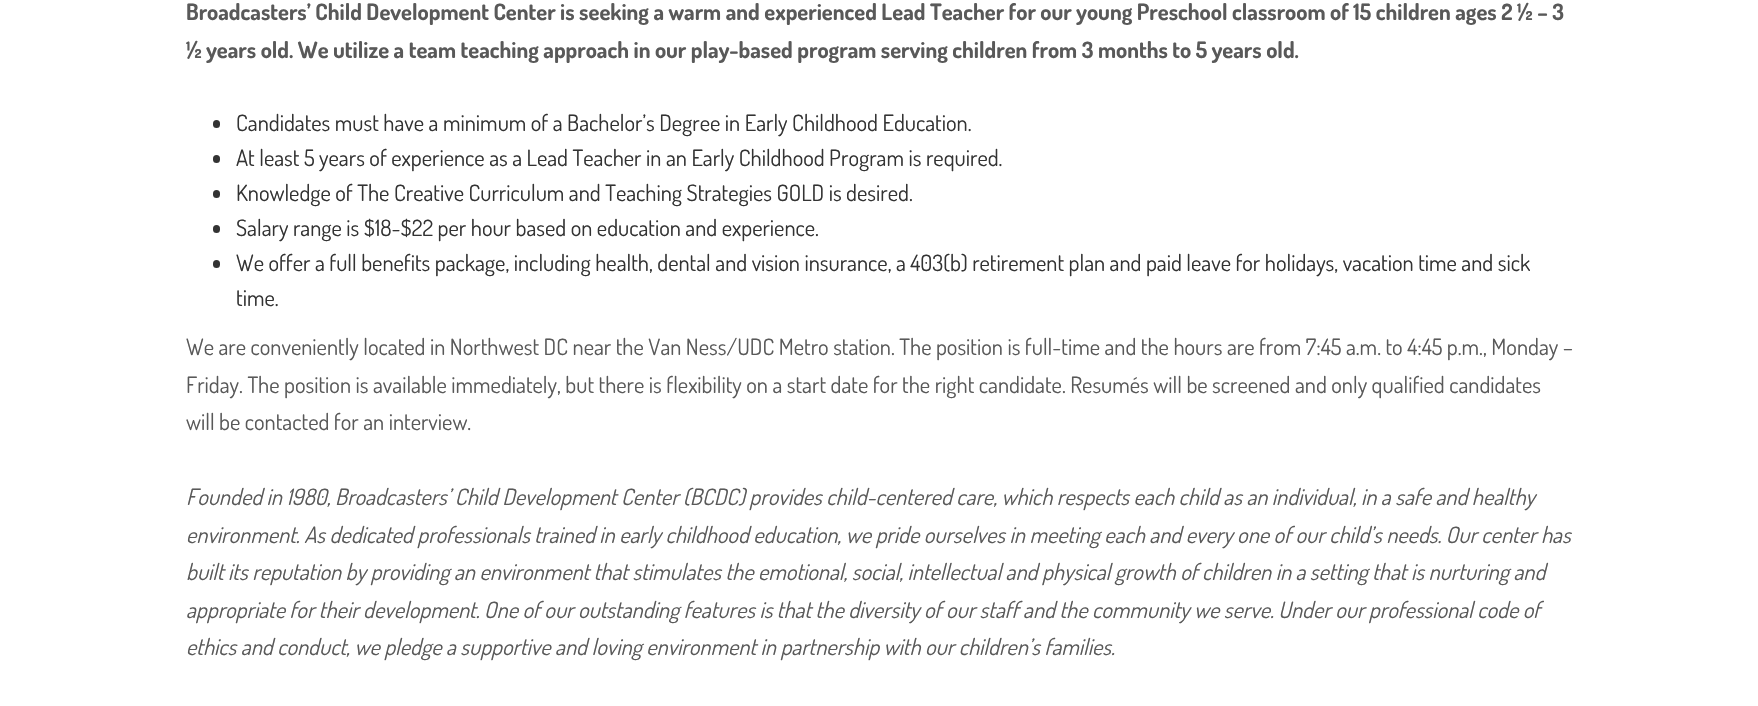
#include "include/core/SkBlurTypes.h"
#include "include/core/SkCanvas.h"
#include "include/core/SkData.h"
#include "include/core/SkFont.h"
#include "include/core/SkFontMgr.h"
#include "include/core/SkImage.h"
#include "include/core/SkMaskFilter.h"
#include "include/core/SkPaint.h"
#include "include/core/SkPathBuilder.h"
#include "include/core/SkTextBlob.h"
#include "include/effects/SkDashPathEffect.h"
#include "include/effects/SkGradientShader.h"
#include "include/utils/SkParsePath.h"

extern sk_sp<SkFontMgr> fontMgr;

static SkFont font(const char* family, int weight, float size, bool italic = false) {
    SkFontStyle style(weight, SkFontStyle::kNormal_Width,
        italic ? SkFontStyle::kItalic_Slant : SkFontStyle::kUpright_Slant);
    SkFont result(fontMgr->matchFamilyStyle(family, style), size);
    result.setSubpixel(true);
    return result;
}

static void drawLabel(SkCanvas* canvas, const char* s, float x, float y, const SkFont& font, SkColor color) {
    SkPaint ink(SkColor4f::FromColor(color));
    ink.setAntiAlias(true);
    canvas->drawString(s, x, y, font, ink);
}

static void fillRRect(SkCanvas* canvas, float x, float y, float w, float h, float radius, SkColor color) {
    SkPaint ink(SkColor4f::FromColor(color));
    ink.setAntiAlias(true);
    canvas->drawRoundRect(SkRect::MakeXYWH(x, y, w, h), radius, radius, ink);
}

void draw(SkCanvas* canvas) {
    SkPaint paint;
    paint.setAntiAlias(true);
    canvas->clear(0xFFFFFFFF);
    SkFont font1 = font("Dosis", 700, 22.5f);
    drawLabel(canvas, "Broadcasters’ Child Development Center is seeking a warm and experienced Lead Teacher for our young Preschool classroom of 15 children ages 2 ½ – 3", 186, 20, font1, 0xFF595959);
    drawLabel(canvas, "½ years old. We utilize a team teaching approach in our play-based program serving children from 3 months to 5 years old.", 186, 58, font1, 0xFF595959);
    fillRRect(canvas, 213, 120, 7, 8, 3.5f, 0xFF333333);
    SkFont font2 = font("Dosis", 400, 22.5f);
    drawLabel(canvas, "Candidates must have a minimum of a Bachelor’s Degree in Early Childhood Education.", 236, 131, font2, 0xFF333333);
    fillRRect(canvas, 213, 155, 7, 8, 3.5f, 0xFF333333);
    drawLabel(canvas, "At least 5 years of experience as a Lead Teacher in an Early Childhood Program is required.", 236, 166, font2, 0xFF333333);
    fillRRect(canvas, 213, 190, 7, 8, 3.5f, 0xFF333333);
    drawLabel(canvas, "Knowledge of The Creative Curriculum and Teaching Strategies GOLD is desired.", 236, 201, font2, 0xFF333333);
    fillRRect(canvas, 213, 225, 7, 8, 3.5f, 0xFF333333);
    drawLabel(canvas, "Salary range is $18-$22 per hour based on education and experience.", 236, 236, font2, 0xFF333333);
    fillRRect(canvas, 213, 260, 7, 8, 3.5f, 0xFF333333);
    drawLabel(canvas, "We offer a full benefits package, including health, dental and vision insurance, a 403(b) retirement plan and paid leave for holidays, vacation time and sick", 236, 271, font2, 0xFF333333);
    drawLabel(canvas, "time.", 236, 306, font2, 0xFF333333);
    drawLabel(canvas, "We are conveniently located in Northwest DC near the Van Ness/UDC Metro station. The position is full-time and the hours are from 7:45 a.m. to 4:45 p.m., Monday –", 186, 355, font2, 0xFF595959);
    drawLabel(canvas, "Friday. The position is available immediately, but there is flexibility on a start date for the right candidate. Resumés will be screened and only qualified candidates", 186, 393, font2, 0xFF595959);
    drawLabel(canvas, "will be contacted for an interview.", 186, 430, font2, 0xFF595959);
    SkFont font3 = font("Dosis", 400, 22.5f, true);
    drawLabel(canvas, "Founded in 1980, Broadcasters’ Child Development Center (BCDC) provides child-centered care, which respects each child as an individual, in a safe and healthy", 186, 505, font3, 0xFF595959);
    drawLabel(canvas, "environment. As dedicated professionals trained in early childhood education, we pride ourselves in meeting each and every one of our child’s needs. Our center has", 186, 543, font3, 0xFF595959);
    drawLabel(canvas, "built its reputation by providing an environment that stimulates the emotional, social, intellectual and physical growth of children in a setting that is nurturing and", 186, 580, font3, 0xFF595959);
    drawLabel(canvas, "appropriate for their development. One of our outstanding features is that the diversity of our staff and the community we serve. Under our professional code of", 186, 618, font3, 0xFF595959);
    drawLabel(canvas, "ethics and conduct, we pledge a supportive and loving environment in partnership with our children’s families.", 186, 655, font3, 0xFF595959);
}
